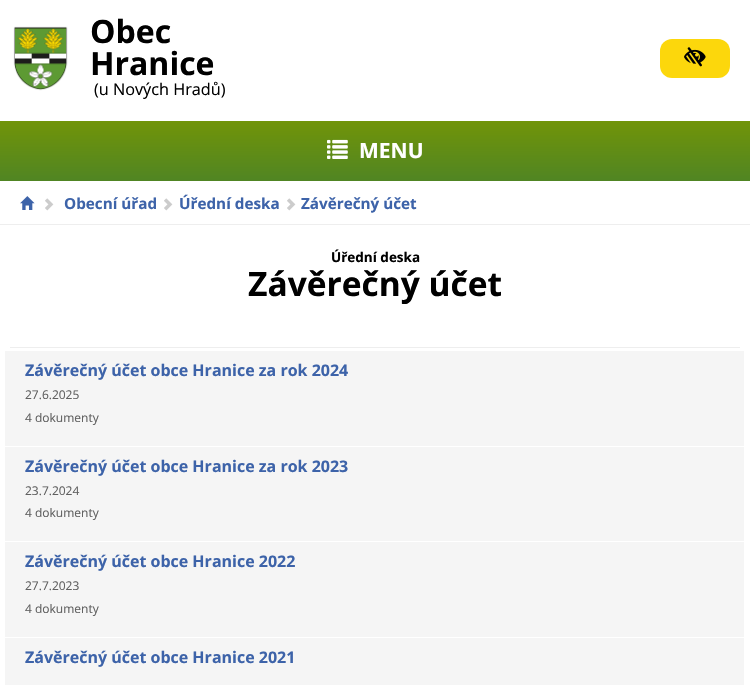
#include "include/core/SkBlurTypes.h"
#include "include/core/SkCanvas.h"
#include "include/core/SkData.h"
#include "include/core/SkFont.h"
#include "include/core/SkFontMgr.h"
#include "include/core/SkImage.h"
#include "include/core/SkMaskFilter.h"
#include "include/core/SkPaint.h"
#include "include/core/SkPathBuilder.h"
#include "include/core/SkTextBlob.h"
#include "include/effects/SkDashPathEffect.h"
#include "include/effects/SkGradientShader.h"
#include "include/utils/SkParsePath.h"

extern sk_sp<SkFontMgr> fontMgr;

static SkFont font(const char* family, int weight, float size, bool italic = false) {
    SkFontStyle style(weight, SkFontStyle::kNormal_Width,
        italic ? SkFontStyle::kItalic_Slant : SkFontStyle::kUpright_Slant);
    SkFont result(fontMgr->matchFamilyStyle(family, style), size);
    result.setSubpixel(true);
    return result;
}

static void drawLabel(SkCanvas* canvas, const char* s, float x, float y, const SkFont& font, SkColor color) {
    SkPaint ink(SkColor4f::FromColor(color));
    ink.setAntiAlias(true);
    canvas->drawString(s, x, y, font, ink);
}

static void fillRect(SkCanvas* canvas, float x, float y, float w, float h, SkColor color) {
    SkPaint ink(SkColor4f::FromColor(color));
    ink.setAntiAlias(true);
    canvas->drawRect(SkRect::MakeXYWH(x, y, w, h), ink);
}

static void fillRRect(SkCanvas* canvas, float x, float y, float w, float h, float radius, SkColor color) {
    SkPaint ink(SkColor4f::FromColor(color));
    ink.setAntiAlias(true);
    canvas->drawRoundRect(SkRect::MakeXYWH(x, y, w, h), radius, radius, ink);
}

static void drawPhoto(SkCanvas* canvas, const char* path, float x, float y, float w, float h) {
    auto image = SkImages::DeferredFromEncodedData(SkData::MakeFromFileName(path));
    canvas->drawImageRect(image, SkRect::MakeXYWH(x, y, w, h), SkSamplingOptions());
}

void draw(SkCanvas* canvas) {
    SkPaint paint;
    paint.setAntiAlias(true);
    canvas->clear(0xFFFFFFFF);
    drawPhoto(canvas, "assets/img1.png", 13, 26, 55, 65);
    SkFont font1 = font("Open Sans", 700, 32);
    drawLabel(canvas, "Obec", 90, 43, font1, 0xFF000000);
    drawLabel(canvas, "Hranice", 90, 75, font1, 0xFF000000);
    SkFont font2 = font("Open Sans", 400, 16.25f);
    drawLabel(canvas, "(u Nových Hradů)", 94, 95, font2, 0xFF000000);
    fillRRect(canvas, 660, 39, 70, 39, 12, 0xFFFCD70C);
    drawPhoto(canvas, "assets/img2.png", 684, 47, 22, 20);
    {
        const SkColor colors[] = {0xFF719409, 0xFF508523};
        const float stops[] = {0, 1};
        const SkPoint ends[] = {{375, 121}, {375, 181}};
        paint.setShader(SkGradientShader::MakeLinear(ends, colors, stops, 2, SkTileMode::kClamp));
        paint.setAlpha(255);
    }
    canvas->drawRect(SkRect::MakeXYWH(0, 121, 750, 60), paint);
    drawPhoto(canvas, "assets/img3.png", 327, 139, 21, 20);
    SkFont font3 = font("Open Sans", 700, 21);
    drawLabel(canvas, "MENU", 359, 158, font3, 0xFFFFFFFF);
    fillRect(canvas, 0, 224, 750, 1, 0xFFEEEEEE);
    drawPhoto(canvas, "assets/img4.png", 20, 196, 15, 14);
    drawPhoto(canvas, "assets/img5.png", 45, 198, 9, 13);
    SkFont font4 = font("Open Sans", 700, 15.25f);
    drawLabel(canvas, "Obecní úřad", 64, 209, font4, 0xFF3D63A9);
    drawPhoto(canvas, "assets/img5.png", 164, 198, 9, 13);
    drawLabel(canvas, "Úřední deska", 179, 209, font4, 0xFF3D63A9);
    drawPhoto(canvas, "assets/img5.png", 287, 198, 9, 13);
    drawLabel(canvas, "Závěrečný účet", 301, 209, font4, 0xFF3D63A9);
    SkFont font5 = font("Open Sans", 700, 13.5f);
    drawLabel(canvas, "Úřední deska", 331, 262, font5, 0xFF000000);
    SkFont font6 = font("Open Sans", 700, 33.5f);
    drawLabel(canvas, "Závěrečný účet", 248, 296, font6, 0xFF000000);
    fillRect(canvas, 10, 347, 730, 1, 0xFFEEEEEE);
    fillRect(canvas, 5, 351, 739, 95, 0xFFF5F5F5);
    SkFont font7 = font("Open Sans", 700, 16);
    drawLabel(canvas, "Závěrečný účet obce Hranice za rok 2024", 25, 376, font7, 0xFF3D63A9);
    SkFont font8 = font("Open Sans", 400, 12);
    drawLabel(canvas, "27.6.2025", 25, 399, font8, 0xFF606060);
    drawLabel(canvas, "4 dokumenty", 25, 422, font8, 0xFF606060);
    fillRect(canvas, 5, 447, 739, 94, 0xFFF5F5F5);
    drawLabel(canvas, "Závěrečný účet obce Hranice za rok 2023", 25, 472, font7, 0xFF3D63A9);
    drawLabel(canvas, "23.7.2024", 25, 495, font8, 0xFF606060);
    drawLabel(canvas, "4 dokumenty", 25, 517, font8, 0xFF606060);
    fillRect(canvas, 5, 542, 739, 95, 0xFFF5F5F5);
    drawLabel(canvas, "Závěrečný účet obce Hranice 2022", 25, 567, font7, 0xFF3D63A9);
    drawLabel(canvas, "27.7.2023", 25, 590, font8, 0xFF606060);
    drawLabel(canvas, "4 dokumenty", 25, 613, font8, 0xFF606060);
    fillRect(canvas, 5, 638, 739, 47, 0xFFF5F5F5);
    drawLabel(canvas, "Závěrečný účet obce Hranice 2021", 25, 663, font7, 0xFF3D63A9);
}
